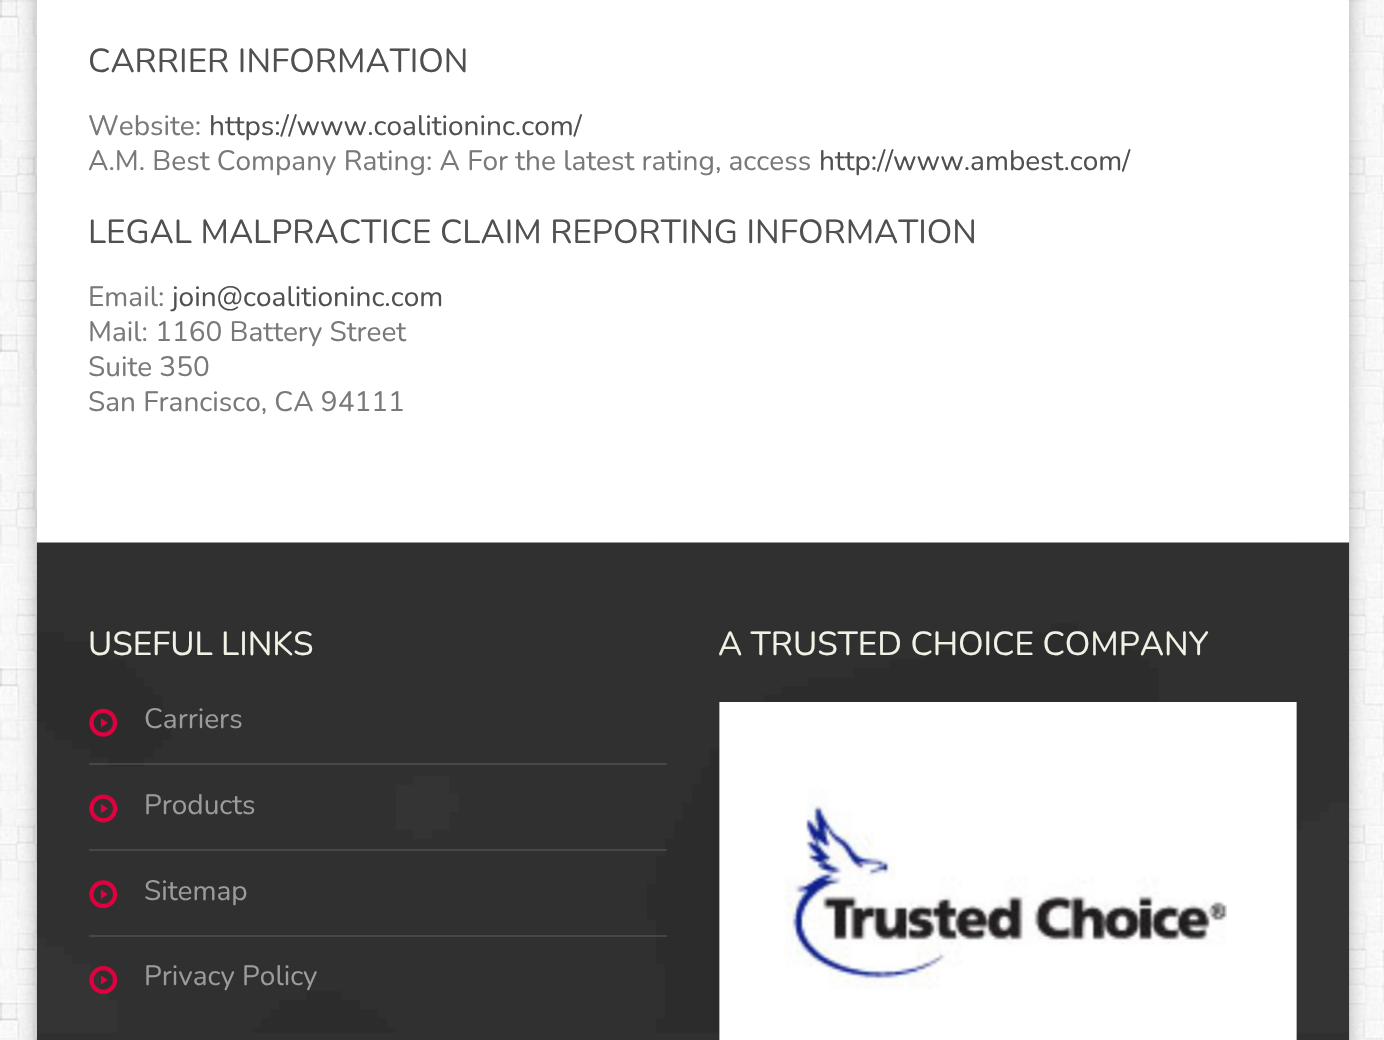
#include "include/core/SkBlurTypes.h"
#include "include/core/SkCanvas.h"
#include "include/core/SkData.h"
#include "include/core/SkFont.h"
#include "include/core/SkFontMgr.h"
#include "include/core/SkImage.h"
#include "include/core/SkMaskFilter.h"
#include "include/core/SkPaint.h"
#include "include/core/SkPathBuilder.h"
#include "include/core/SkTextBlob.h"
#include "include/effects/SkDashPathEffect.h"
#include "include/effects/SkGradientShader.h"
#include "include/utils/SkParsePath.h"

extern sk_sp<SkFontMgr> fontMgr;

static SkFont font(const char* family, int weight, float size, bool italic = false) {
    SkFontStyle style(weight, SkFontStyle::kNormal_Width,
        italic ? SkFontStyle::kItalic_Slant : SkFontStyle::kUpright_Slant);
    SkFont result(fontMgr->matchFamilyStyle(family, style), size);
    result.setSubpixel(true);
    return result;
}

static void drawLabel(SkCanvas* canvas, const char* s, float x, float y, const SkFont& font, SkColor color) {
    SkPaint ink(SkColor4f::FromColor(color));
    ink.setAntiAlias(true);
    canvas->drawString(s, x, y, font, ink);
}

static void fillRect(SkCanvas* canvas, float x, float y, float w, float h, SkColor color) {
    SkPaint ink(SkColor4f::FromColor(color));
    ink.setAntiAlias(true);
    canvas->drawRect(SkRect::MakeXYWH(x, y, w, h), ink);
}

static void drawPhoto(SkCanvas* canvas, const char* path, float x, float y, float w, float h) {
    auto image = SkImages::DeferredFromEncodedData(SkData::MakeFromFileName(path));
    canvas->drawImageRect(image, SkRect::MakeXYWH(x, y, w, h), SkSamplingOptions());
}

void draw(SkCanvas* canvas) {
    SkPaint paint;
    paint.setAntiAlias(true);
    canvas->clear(0xFFFFFFFF);
    drawPhoto(canvas, "assets/img1.png", 0, 0, 1384, 1040);
    paint.setColor(0x4D000000);
    paint.setMaskFilter(SkMaskFilter::MakeBlur(kNormal_SkBlurStyle, 9));
    canvas->drawRect(SkRect::MakeXYWH(37, -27, 1312, 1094), paint);
    paint.setMaskFilter(nullptr);
    fillRect(canvas, 37, 0, 1312, 543, 0xFFFFFFFF);
    SkFont font1 = font("Nunito", 400, 33.25f);
    drawLabel(canvas, "CARRIER INFORMATION", 88, 72, font1, 0xFF505050);
    SkFont font2 = font("Nunito", 400, 28);
    drawLabel(canvas, "Website:", 88, 135, font2, 0xFF797979);
    drawLabel(canvas, "https://www.coalitioninc.com/", 209, 135, font2, 0xFF505050);
    drawLabel(canvas, "A.M. Best Company Rating: A For the latest rating, access", 88, 170, font2, 0xFF797979);
    drawLabel(canvas, "http://www.ambest.com/", 819, 170, font2, 0xFF505050);
    drawLabel(canvas, "LEGAL MALPRACTICE CLAIM REPORTING INFORMATION", 88, 243, font1, 0xFF505050);
    drawLabel(canvas, "Email:", 88, 306, font2, 0xFF797979);
    drawLabel(canvas, "join@coalitioninc.com", 172, 306, font2, 0xFF505050);
    drawLabel(canvas, "Mail: 1160 Battery Street", 88, 341, font2, 0xFF797979);
    drawLabel(canvas, "Suite 350", 88, 376, font2, 0xFF797979);
    drawLabel(canvas, "San Francisco, CA 94111", 88, 411, font2, 0xFF797979);
    drawPhoto(canvas, "assets/img2.png", 36, 542, 1314, 498);
    drawLabel(canvas, "USEFUL LINKS", 88, 655, font1, 0xFFF2F1E6);
    fillRect(canvas, 89, 763, 578, 2, 0x1CFFFFFF);
    drawPhoto(canvas, "assets/img3.png", 89, 708, 29, 29);
    drawLabel(canvas, "Carriers", 144, 728, font2, 0xFF9B9B9B);
    fillRect(canvas, 89, 849, 578, 2, 0x1CFFFFFF);
    drawPhoto(canvas, "assets/img4.png", 89, 794, 29, 29);
    drawLabel(canvas, "Products", 144, 814, font2, 0xFF9B9B9B);
    fillRect(canvas, 89, 935, 578, 2, 0x1CFFFFFF);
    drawPhoto(canvas, "assets/img5.png", 89, 880, 29, 29);
    drawLabel(canvas, "Sitemap", 144, 900, font2, 0xFF9B9B9B);
    drawPhoto(canvas, "assets/img6.png", 89, 966, 29, 28);
    drawLabel(canvas, "Privacy Policy", 144, 985, font2, 0xFF9B9B9B);
    drawLabel(canvas, "A TRUSTED CHOICE COMPANY", 718, 655, font1, 0xFFF2F1E6);
    drawPhoto(canvas, "assets/img7.png", 719, 702, 578, 338);
}
